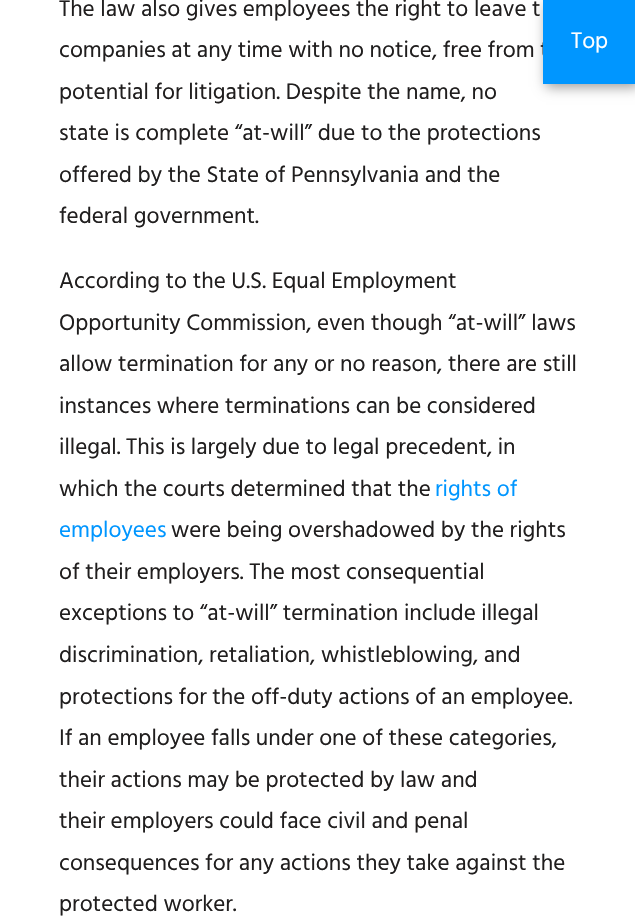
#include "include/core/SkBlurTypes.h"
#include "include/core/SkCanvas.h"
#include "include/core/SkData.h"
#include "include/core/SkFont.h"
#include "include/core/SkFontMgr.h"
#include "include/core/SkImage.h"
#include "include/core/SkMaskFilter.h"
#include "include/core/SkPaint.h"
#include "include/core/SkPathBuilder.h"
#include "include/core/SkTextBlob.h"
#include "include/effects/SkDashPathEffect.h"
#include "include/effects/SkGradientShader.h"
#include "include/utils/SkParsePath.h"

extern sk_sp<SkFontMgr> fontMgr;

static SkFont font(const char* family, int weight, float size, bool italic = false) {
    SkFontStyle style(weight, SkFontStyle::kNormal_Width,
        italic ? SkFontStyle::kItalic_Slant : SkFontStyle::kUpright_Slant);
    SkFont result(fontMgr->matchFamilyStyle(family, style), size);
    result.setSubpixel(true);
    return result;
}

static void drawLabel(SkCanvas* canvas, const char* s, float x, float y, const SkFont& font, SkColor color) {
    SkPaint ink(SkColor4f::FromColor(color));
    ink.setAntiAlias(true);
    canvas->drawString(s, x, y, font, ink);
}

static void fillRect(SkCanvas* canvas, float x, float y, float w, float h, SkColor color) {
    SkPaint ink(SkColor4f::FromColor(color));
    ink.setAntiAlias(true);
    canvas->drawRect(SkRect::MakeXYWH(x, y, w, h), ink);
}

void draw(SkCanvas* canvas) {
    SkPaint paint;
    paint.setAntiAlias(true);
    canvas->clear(0xFFFFFFFF);
    SkFont font1 = font("Hind", 400, 23.1f);
    drawLabel(canvas, "The law also gives employees the right to leave t", 59, 16, font1, 0xFF201E1E);
    drawLabel(canvas, "companies at any time with no notice, free from t", 59, 57, font1, 0xFF201E1E);
    drawLabel(canvas, "potential for litigation. Despite the name, no", 59, 99, font1, 0xFF201E1E);
    drawLabel(canvas, "state is complete “at-will” due to the protections", 59, 140, font1, 0xFF201E1E);
    drawLabel(canvas, "offered by the State of Pennsylvania and the", 59, 182, font1, 0xFF201E1E);
    drawLabel(canvas, "federal government.", 59, 223, font1, 0xFF201E1E);
    drawLabel(canvas, "According to the U.S. Equal Employment", 59, 288, font1, 0xFF201E1E);
    drawLabel(canvas, "Opportunity Commission, even though “at-will” laws", 59, 330, font1, 0xFF201E1E);
    drawLabel(canvas, "allow termination for any or no reason, there are still", 59, 371, font1, 0xFF201E1E);
    drawLabel(canvas, "instances where terminations can be considered", 59, 413, font1, 0xFF201E1E);
    drawLabel(canvas, "illegal. This is largely due to legal precedent, in", 59, 454, font1, 0xFF201E1E);
    drawLabel(canvas, "which the courts determined that the", 59, 496, font1, 0xFF201E1E);
    drawLabel(canvas, "rights of", 435, 496, font1, 0xFF0096FF);
    drawLabel(canvas, "employees", 59, 537, font1, 0xFF0096FF);
    drawLabel(canvas, "were being overshadowed by the rights", 171, 537, font1, 0xFF201E1E);
    drawLabel(canvas, "of their employers. The most consequential", 59, 579, font1, 0xFF201E1E);
    drawLabel(canvas, "exceptions to “at-will” termination include illegal", 59, 620, font1, 0xFF201E1E);
    drawLabel(canvas, "discrimination, retaliation, whistleblowing, and", 59, 662, font1, 0xFF201E1E);
    drawLabel(canvas, "protections for the off-duty actions of an employee.", 59, 704, font1, 0xFF201E1E);
    drawLabel(canvas, "If an employee falls under one of these categories,", 59, 745, font1, 0xFF201E1E);
    drawLabel(canvas, "their actions may be protected by law and", 59, 787, font1, 0xFF201E1E);
    drawLabel(canvas, "their employers could face civil and penal", 59, 828, font1, 0xFF201E1E);
    drawLabel(canvas, "consequences for any actions they take against the", 59, 870, font1, 0xFF201E1E);
    drawLabel(canvas, "protected worker.", 59, 911, font1, 0xFF201E1E);
    paint.setColor(0x66000000);
    paint.setMaskFilter(SkMaskFilter::MakeBlur(kNormal_SkBlurStyle, 6));
    canvas->drawRect(SkRect::MakeXYWH(546, 3, 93, 84), paint);
    paint.setMaskFilter(nullptr);
    fillRect(canvas, 543, 0, 92, 84, 0xFF0096FF);
    drawLabel(canvas, "Top", 571, 48, font1, 0xFFFFFFFF);
}
